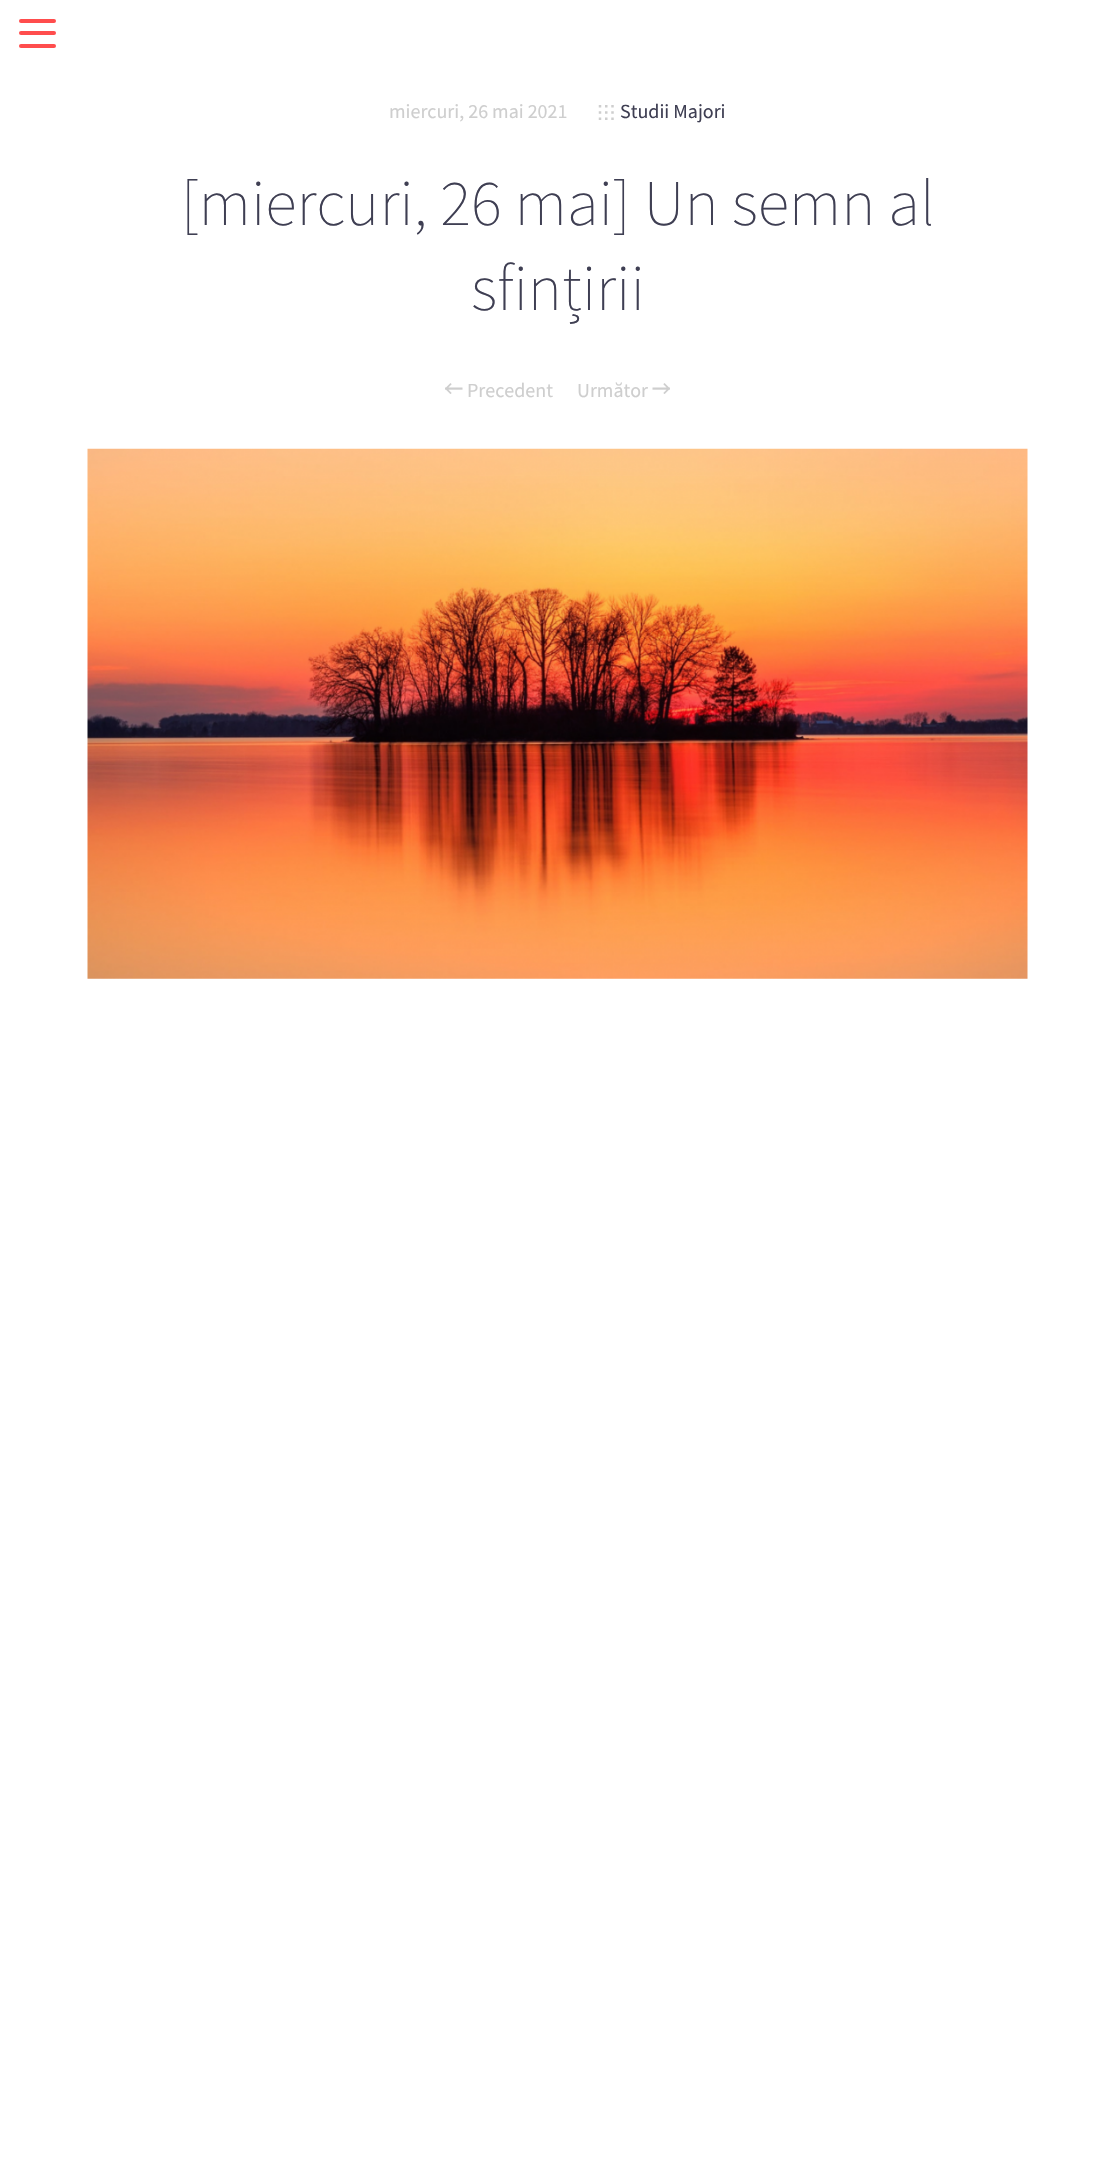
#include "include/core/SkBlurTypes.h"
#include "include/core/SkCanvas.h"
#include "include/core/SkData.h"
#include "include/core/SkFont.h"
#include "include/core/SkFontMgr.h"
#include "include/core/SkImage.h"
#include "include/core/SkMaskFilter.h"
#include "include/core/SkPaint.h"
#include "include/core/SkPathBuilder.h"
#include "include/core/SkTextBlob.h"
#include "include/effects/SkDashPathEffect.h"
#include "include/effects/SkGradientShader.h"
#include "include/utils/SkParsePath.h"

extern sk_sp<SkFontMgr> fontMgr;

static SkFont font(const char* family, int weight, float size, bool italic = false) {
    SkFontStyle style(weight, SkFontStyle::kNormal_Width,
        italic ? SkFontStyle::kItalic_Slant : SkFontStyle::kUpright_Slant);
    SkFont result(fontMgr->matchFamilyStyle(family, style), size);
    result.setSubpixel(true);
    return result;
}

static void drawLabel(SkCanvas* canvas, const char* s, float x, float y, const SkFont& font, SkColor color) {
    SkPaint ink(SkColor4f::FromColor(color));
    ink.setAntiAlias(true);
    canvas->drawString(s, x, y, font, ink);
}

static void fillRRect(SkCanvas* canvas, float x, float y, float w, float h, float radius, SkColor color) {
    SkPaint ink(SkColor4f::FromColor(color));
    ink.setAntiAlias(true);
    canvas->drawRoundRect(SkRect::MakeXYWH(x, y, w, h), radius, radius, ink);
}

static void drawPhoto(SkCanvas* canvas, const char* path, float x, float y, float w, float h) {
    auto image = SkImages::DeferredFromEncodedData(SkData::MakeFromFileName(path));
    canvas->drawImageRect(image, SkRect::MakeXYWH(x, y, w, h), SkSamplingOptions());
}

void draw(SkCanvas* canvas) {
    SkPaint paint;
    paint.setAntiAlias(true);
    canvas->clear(0xFFFFFFFF);
    fillRRect(canvas, 19, 31, 37, 4, 2, 0xFFFF4D4D);
    fillRRect(canvas, 19, 19, 37, 4, 2, 0xFFFF4D4D);
    fillRRect(canvas, 19, 44, 37, 4, 2, 0xFFFF4D4D);
    SkFont font1 = font("Source Sans Pro", 400, 20);
    drawLabel(canvas, "miercuri, 26 mai 2021", 389, 118, font1, 0xFFCECECE);
    drawPhoto(canvas, "assets/img1.png", 598, 105, 16, 15);
    drawLabel(canvas, "Studii Majori", 620, 118, font1, 0xFF3F3F53);
    SkFont font2 = font("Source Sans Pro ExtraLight", 200, 65);
    drawLabel(canvas, "[miercuri, 26 mai] Un semn al", 181, 225, font2, 0xFF3F3F53);
    drawLabel(canvas, "sfințirii", 471, 310, font2, 0xFF3F3F53);
    drawPhoto(canvas, "assets/img2.png", 445, 383, 18, 11);
    drawLabel(canvas, "Precedent", 467, 397, font1, 0xFFCECECE);
    drawLabel(canvas, "Următor", 577, 397, font1, 0xFFCECECE);
    drawPhoto(canvas, "assets/img3.png", 652, 383, 18, 11);
    drawPhoto(canvas, "assets/img4.png", 87, 448, 941, 531);
}
